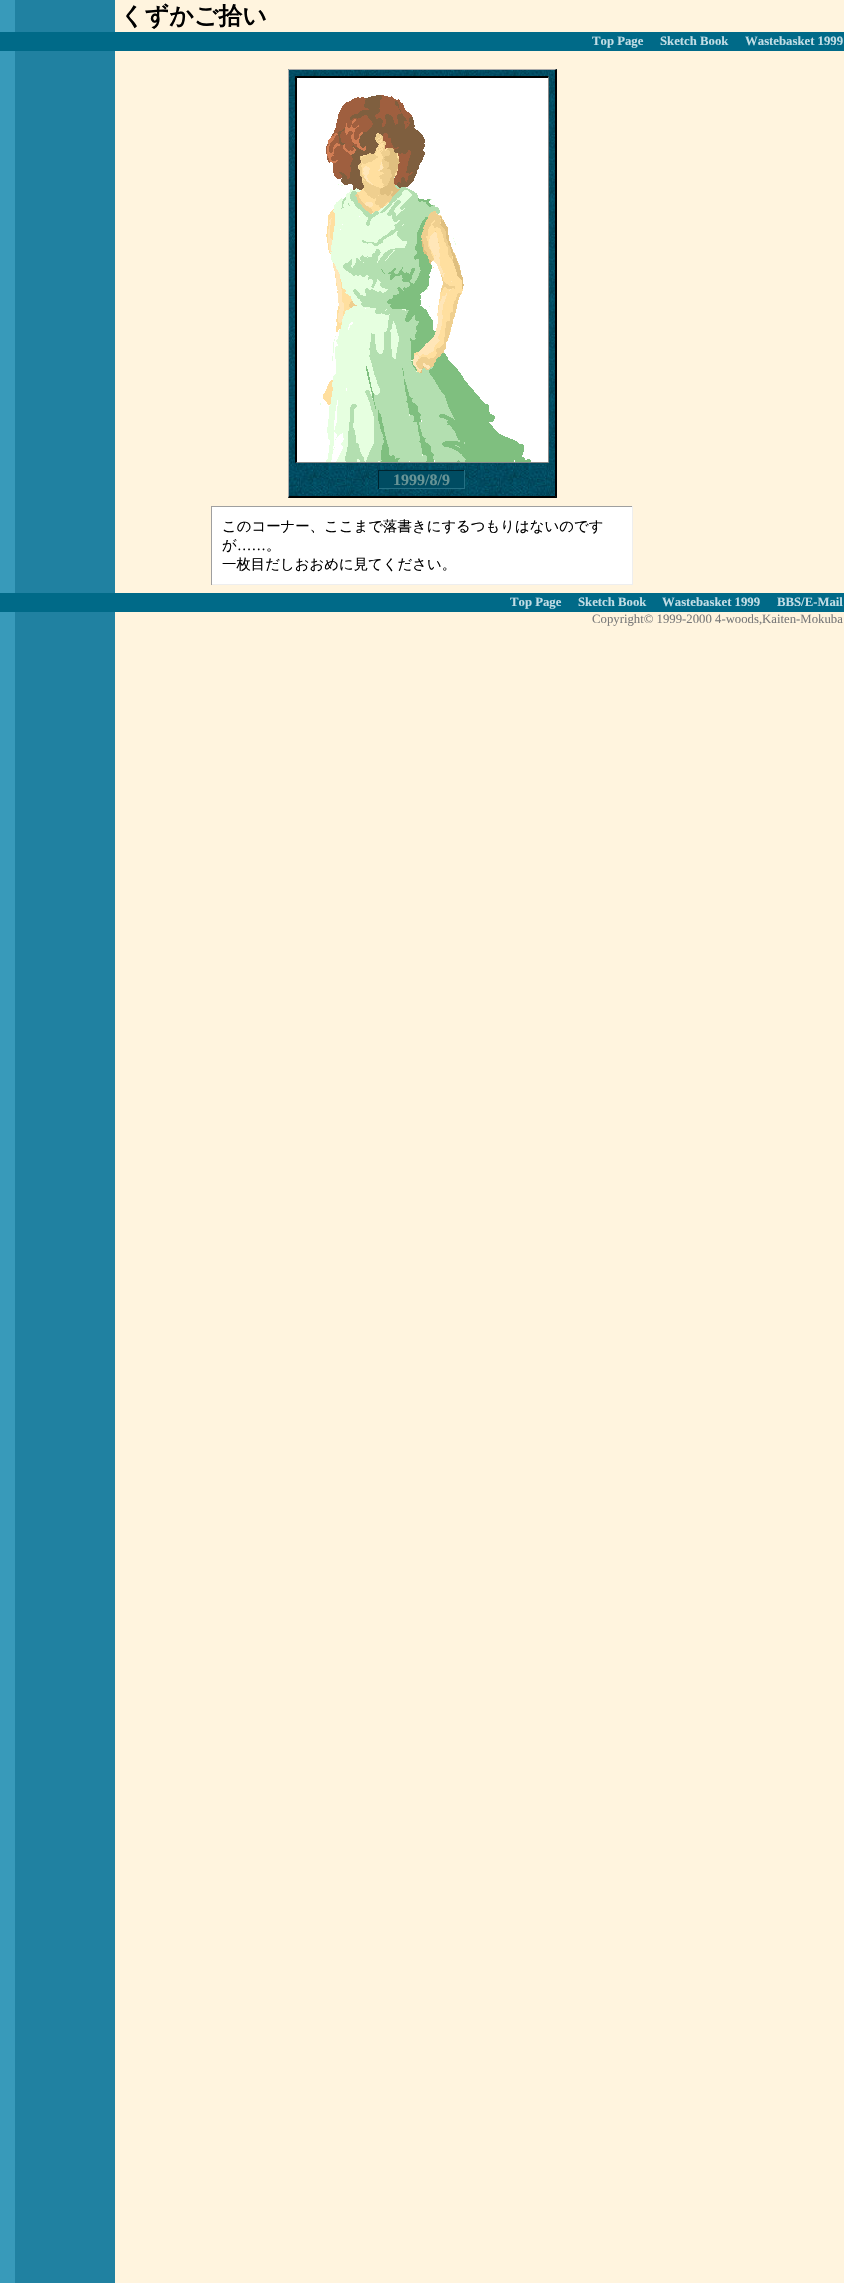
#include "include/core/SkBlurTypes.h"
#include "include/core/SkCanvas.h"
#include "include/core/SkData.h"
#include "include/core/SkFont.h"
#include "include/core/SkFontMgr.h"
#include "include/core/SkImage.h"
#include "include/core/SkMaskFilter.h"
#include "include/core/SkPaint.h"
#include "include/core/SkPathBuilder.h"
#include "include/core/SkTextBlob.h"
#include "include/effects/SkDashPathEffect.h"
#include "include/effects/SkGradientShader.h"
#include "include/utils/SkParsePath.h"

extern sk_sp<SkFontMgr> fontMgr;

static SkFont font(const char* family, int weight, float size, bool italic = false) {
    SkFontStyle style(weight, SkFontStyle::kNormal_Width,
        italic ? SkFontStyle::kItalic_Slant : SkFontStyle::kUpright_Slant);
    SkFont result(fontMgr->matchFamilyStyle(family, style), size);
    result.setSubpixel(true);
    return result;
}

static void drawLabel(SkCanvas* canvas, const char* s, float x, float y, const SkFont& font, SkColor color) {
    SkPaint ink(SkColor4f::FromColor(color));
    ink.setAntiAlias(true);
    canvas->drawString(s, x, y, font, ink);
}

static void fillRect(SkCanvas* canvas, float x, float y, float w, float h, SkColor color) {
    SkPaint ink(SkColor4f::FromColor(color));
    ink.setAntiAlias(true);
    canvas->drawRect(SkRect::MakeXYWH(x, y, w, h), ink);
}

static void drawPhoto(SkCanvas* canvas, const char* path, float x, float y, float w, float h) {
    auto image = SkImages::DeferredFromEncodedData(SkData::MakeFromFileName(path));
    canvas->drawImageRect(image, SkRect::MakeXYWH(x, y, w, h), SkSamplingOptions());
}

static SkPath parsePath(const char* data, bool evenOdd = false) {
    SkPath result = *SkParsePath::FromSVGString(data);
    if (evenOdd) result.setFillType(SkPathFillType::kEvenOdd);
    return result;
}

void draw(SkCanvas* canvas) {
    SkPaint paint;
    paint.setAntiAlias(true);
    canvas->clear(0xFFFFF4DE);
    drawPhoto(canvas, "assets/img1.png", 0, 0, 115, 2283);
    SkFont font1 = font("WenQuanYi Zen Hei", 700, 24);
    drawLabel(canvas, "くずかご拾い", 120, 24, font1, 0xFF000000);
    fillRect(canvas, 0, 32, 844, 19, 0xFF006A88);
    SkFont font2 = font("Liberation Serif", 700, 12.75f);
    drawLabel(canvas, "Top Page", 592, 45, font2, 0xFFC2DDE5);
    drawLabel(canvas, "Sketch Book", 660, 45, font2, 0xFFC2DDE5);
    drawLabel(canvas, "Wastebasket 1999", 745, 45, font2, 0xFFC2DDE5);
    drawPhoto(canvas, "assets/img2.png", 288, 69, 269, 429);
    paint.setColor(0xFFAAAAAA);
    canvas->drawPath(parsePath("M288 69H557L555 70H289Z"), paint);
    paint.setColor(0xFF000000);
    canvas->drawPath(parsePath("M557 69V498L555 496V70Z"), paint);
    canvas->drawPath(parsePath("M557 498H288L289 496H555Z"), paint);
    paint.setColor(0xFFAAAAAA);
    canvas->drawPath(parsePath("M288 498V69L289 70V496Z"), paint);
    paint.setColor(0xFF000000);
    canvas->drawPath(parsePath("M295 76H549L548 78H297Z"), paint);
    paint.setColor(0xFF888888);
    canvas->drawPath(parsePath("M549 76V463L548 462V78Z"), paint);
    canvas->drawPath(parsePath("M549 463H295L297 462H548Z"), paint);
    paint.setColor(0xFF000000);
    canvas->drawPath(parsePath("M295 463V76L297 78V462Z"), paint);
    drawPhoto(canvas, "assets/img3.png", 297, 78, 251, 384);
    fillRect(canvas, 379, 471, 85, 17, 0xFF004C62);
    SkFont font3 = font("Liberation Serif", 700, 16);
    drawLabel(canvas, "1999/8/9", 393, 485, font3, 0xFF679395);
    fillRect(canvas, 378, 470, 87, 1, 0xFF00242F);
    fillRect(canvas, 464, 470, 1, 19, 0xFF257084);
    fillRect(canvas, 378, 488, 87, 1, 0xFF257084);
    fillRect(canvas, 378, 470, 1, 19, 0xFF00242F);
    fillRect(canvas, 212, 507, 420, 77, 0xFFFFFFFF);
    fillRect(canvas, 211, 506, 422, 1, 0xFF9F9F9F);
    fillRect(canvas, 632, 506, 1, 79, 0xFFEEEEEE);
    fillRect(canvas, 211, 584, 422, 1, 0xFFEEEEEE);
    fillRect(canvas, 211, 506, 1, 79, 0xFF9F9F9F);
    SkFont font4 = font("WenQuanYi Zen Hei", 500, 14.4f);
    drawLabel(canvas, "このコーナー、ここまで落書きにするつもりはないのです", 222, 531, font4, 0xFF000000);
    drawLabel(canvas, "が", 222, 550, font4, 0xFF000000);
    SkFont font5 = font("Liberation Serif", 400, 14.4f);
    drawLabel(canvas, "……", 237, 550, font5, 0xFF000000);
    drawLabel(canvas, "。", 266, 550, font4, 0xFF000000);
    drawLabel(canvas, "一枚目だしおおめに見てください。", 222, 569, font4, 0xFF000000);
    fillRect(canvas, 0, 593, 844, 19, 0xFF006A88);
    drawLabel(canvas, "Top Page", 510, 606, font2, 0xFFC2DDE5);
    drawLabel(canvas, "Sketch Book", 578, 606, font2, 0xFFC2DDE5);
    drawLabel(canvas, "Wastebasket 1999", 662, 606, font2, 0xFFC2DDE5);
    drawLabel(canvas, "BBS/E-Mail", 777, 606, font2, 0xFFC2DDE5);
    SkFont font6 = font("Liberation Serif", 400, 12.75f);
    drawLabel(canvas, "Copyright© 1999-2000 4-woods,Kaiten-Mokuba", 592, 623, font6, 0xFF797979);
}
